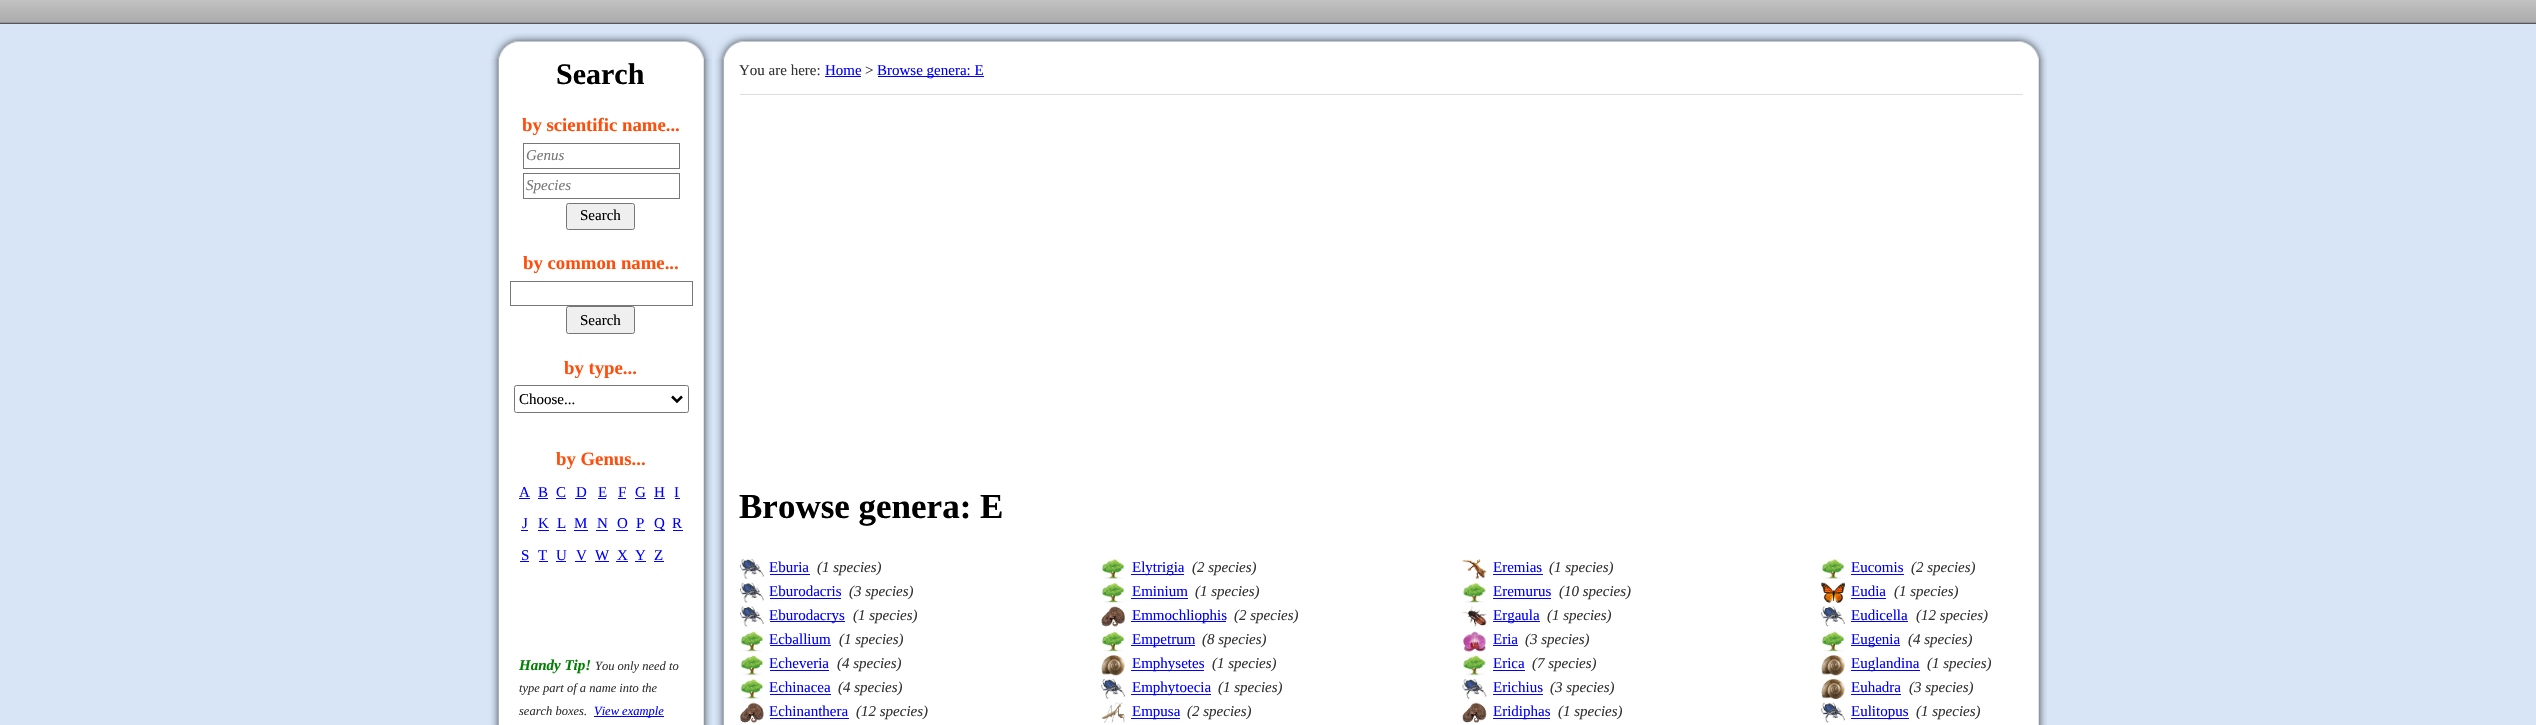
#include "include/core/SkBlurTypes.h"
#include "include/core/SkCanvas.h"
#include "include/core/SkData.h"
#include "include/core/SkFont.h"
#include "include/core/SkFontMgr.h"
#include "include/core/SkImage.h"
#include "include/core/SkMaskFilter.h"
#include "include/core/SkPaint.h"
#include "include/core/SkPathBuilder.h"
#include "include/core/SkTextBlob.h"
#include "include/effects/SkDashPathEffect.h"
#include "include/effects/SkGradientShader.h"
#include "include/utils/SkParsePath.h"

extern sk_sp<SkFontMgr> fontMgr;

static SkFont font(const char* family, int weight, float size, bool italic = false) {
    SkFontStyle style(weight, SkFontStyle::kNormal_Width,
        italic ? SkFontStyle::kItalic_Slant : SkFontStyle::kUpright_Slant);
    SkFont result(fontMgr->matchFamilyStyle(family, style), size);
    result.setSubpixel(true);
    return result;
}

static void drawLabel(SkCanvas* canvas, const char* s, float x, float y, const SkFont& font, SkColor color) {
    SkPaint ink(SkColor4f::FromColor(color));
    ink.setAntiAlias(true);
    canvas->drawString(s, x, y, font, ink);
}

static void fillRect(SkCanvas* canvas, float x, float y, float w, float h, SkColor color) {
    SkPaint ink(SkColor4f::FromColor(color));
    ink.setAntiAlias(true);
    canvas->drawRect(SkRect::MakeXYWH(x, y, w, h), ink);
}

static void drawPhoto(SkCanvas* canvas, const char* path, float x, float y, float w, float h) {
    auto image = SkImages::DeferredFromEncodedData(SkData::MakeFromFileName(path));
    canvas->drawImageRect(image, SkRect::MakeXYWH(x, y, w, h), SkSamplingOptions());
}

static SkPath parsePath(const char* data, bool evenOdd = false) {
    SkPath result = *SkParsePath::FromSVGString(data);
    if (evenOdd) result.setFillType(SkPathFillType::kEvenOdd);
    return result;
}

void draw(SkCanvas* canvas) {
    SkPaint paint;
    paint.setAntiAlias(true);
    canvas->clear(0xFFD7E5F7);
    drawPhoto(canvas, "assets/img1.png", 0, 0, 2536, 24);
    drawPhoto(canvas, "assets/img2.png", 491, 33, 221, 26);
    drawPhoto(canvas, "assets/img3.png", 716, 33, 1331, 26);
    drawPhoto(canvas, "assets/img4.png", 490, 59, 222, 666);
    SkFont font1 = font("Liberation Serif", 700, 30);
    drawLabel(canvas, "Search", 556, 84, font1, 0xFF000000);
    SkFont font2 = font("Liberation Serif", 700, 18.75f);
    drawLabel(canvas, "by scientific name...", 522, 131, font2, 0xFFFF4D0B);
    paint.setStroke(true);
    paint.setStrokeWidth(1);
    paint.setColor(0xFF777777);
    canvas->drawRect(SkRect::MakeXYWH(523.5f, 143.5f, 156, 25), paint);
    SkFont font3 = font("Liberation Serif", 400, 15, true);
    drawLabel(canvas, "Genus", 526, 160, font3, 0xFF777777);
    canvas->drawRect(SkRect::MakeXYWH(523.5f, 173.5f, 156, 25), paint);
    drawLabel(canvas, "Species", 526, 190, font3, 0xFF777777);
    paint.setStroke(false);
    paint.setColor(0xFFEFEFEF);
    canvas->drawRoundRect(SkRect::MakeXYWH(566.5f, 203.5f, 68, 26), 2, 2, paint);
    paint.setStroke(true);
    paint.setColor(0xFF767676);
    canvas->drawRoundRect(SkRect::MakeXYWH(566.5f, 203.5f, 68, 26), 2, 2, paint);
    SkFont font4 = font("Liberation Serif", 400, 15);
    drawLabel(canvas, "Search", 580, 220, font4, 0xFF000000);
    drawLabel(canvas, "by common name...", 523, 269, font2, 0xFFFF4D0B);
    paint.setColor(0xFF777777);
    canvas->drawRect(SkRect::MakeXYWH(510.5f, 281.5f, 182, 24), paint);
    paint.setStroke(false);
    paint.setColor(0xFFEFEFEF);
    canvas->drawRoundRect(SkRect::MakeXYWH(566.5f, 306.5f, 68, 27), 2, 2, paint);
    paint.setStroke(true);
    paint.setColor(0xFF767676);
    canvas->drawRoundRect(SkRect::MakeXYWH(566.5f, 306.5f, 68, 27), 2, 2, paint);
    drawLabel(canvas, "Search", 580, 325, font4, 0xFF000000);
    drawLabel(canvas, "by type...", 564, 374, font2, 0xFFFF4D0B);
    canvas->drawRoundRect(SkRect::MakeXYWH(514.5f, 385.5f, 174, 27), 2, 2, paint);
    paint.setStrokeWidth(2.5f);
    paint.setColor(0xFF000000);
    canvas->drawPath(parsePath("M672 396.5L677 401.5L682 396.5"), paint);
    drawLabel(canvas, "Choose...", 519, 404, font4, 0xFF000000);
    drawLabel(canvas, "by Genus...", 556, 465, font2, 0xFFFF4D0B);
    drawLabel(canvas, "A", 519, 497, font4, 0xFF0000FF);
    fillRect(canvas, 519, 498, 11, 1, 0xFF0000FF);
    drawLabel(canvas, "B", 538, 497, font4, 0xFF0000FF);
    fillRect(canvas, 538, 498, 10, 1, 0xFF0000FF);
    drawLabel(canvas, "C", 556, 497, font4, 0xFF0000FF);
    fillRect(canvas, 556, 498, 10, 1, 0xFF0000FF);
    drawLabel(canvas, "D", 576, 497, font4, 0xFF0000FF);
    fillRect(canvas, 575, 498, 11, 1, 0xFF0000FF);
    drawLabel(canvas, "E", 598, 497, font4, 0xFF0000FF);
    fillRect(canvas, 598, 498, 8, 1, 0xFF0000FF);
    drawLabel(canvas, "F", 618, 497, font4, 0xFF0000FF);
    fillRect(canvas, 618, 498, 8, 1, 0xFF0000FF);
    drawLabel(canvas, "G", 635, 497, font4, 0xFF0000FF);
    fillRect(canvas, 635, 498, 11, 1, 0xFF0000FF);
    drawLabel(canvas, "H", 654, 497, font4, 0xFF0000FF);
    fillRect(canvas, 654, 498, 11, 1, 0xFF0000FF);
    drawLabel(canvas, "I", 674, 497, font4, 0xFF0000FF);
    fillRect(canvas, 675, 498, 5, 1, 0xFF0000FF);
    drawLabel(canvas, "J", 522, 528, font4, 0xFF0000FF);
    fillRect(canvas, 521, 530, 7, 1, 0xFF0000FF);
    drawLabel(canvas, "K", 538, 528, font4, 0xFF0000FF);
    fillRect(canvas, 538, 530, 11, 1, 0xFF0000FF);
    drawLabel(canvas, "L", 557, 528, font4, 0xFF0000FF);
    fillRect(canvas, 556, 530, 10, 1, 0xFF0000FF);
    drawLabel(canvas, "M", 574, 528, font4, 0xFF0000FF);
    fillRect(canvas, 574, 530, 14, 1, 0xFF0000FF);
    drawLabel(canvas, "N", 597, 528, font4, 0xFF0000FF);
    fillRect(canvas, 596, 530, 12, 1, 0xFF0000FF);
    drawLabel(canvas, "O", 617, 528, font4, 0xFF0000FF);
    fillRect(canvas, 616, 530, 12, 1, 0xFF0000FF);
    drawLabel(canvas, "P", 636, 528, font4, 0xFF0000FF);
    fillRect(canvas, 636, 530, 9, 1, 0xFF0000FF);
    fillRect(canvas, 654, 530, 11, 1, 0xFF0000FF);
    drawLabel(canvas, "Q", 654, 528, font4, 0xFF0000FF);
    drawLabel(canvas, "R", 672, 528, font4, 0xFF0000FF);
    fillRect(canvas, 673, 530, 10, 1, 0xFF0000FF);
    drawLabel(canvas, "S", 521, 560, font4, 0xFF0000FF);
    fillRect(canvas, 520, 561, 9, 1, 0xFF0000FF);
    drawLabel(canvas, "T", 538, 560, font4, 0xFF0000FF);
    fillRect(canvas, 539, 561, 9, 1, 0xFF0000FF);
    drawLabel(canvas, "U", 556, 560, font4, 0xFF0000FF);
    fillRect(canvas, 556, 561, 10, 1, 0xFF0000FF);
    drawLabel(canvas, "V", 576, 560, font4, 0xFF0000FF);
    fillRect(canvas, 575, 561, 11, 1, 0xFF0000FF);
    drawLabel(canvas, "W", 595, 560, font4, 0xFF0000FF);
    fillRect(canvas, 595, 561, 14, 1, 0xFF0000FF);
    drawLabel(canvas, "X", 617, 560, font4, 0xFF0000FF);
    fillRect(canvas, 616, 561, 12, 1, 0xFF0000FF);
    drawLabel(canvas, "Y", 635, 560, font4, 0xFF0000FF);
    fillRect(canvas, 635, 561, 11, 1, 0xFF0000FF);
    drawLabel(canvas, "Z", 654, 560, font4, 0xFF0000FF);
    fillRect(canvas, 654, 561, 10, 1, 0xFF0000FF);
    SkFont font5 = font("Liberation Serif", 700, 15, true);
    drawLabel(canvas, "Handy Tip!", 519, 670, font5, 0xFF008000);
    SkFont font6 = font("Liberation Serif", 400, 12.5f, true);
    drawLabel(canvas, "You only need to", 595, 670, font6, 0xFF333333);
    drawLabel(canvas, "type part of a name into the", 519, 692, font6, 0xFF333333);
    drawLabel(canvas, "search boxes.", 519, 715, font6, 0xFF333333);
    fillRect(canvas, 594, 716, 70, 1, 0xFF0000FF);
    drawLabel(canvas, "View example", 594, 715, font6, 0xFF0000FF);
    drawPhoto(canvas, "assets/img5.png", 715, 59, 1332, 666);
    fillRect(canvas, 740, 94, 1283, 1, 0xFFDDDDDD);
    drawLabel(canvas, "You are here:", 739, 75, font4, 0xFF333333);
    drawLabel(canvas, "Home", 825, 75, font4, 0xFF0000FF);
    fillRect(canvas, 825, 76, 36, 1, 0xFF0000FF);
    drawLabel(canvas, ">", 865, 75, font4, 0xFF333333);
    fillRect(canvas, 878, 76, 106, 1, 0xFF0000FF);
    drawLabel(canvas, "Browse genera: E", 877, 75, font4, 0xFF0000FF);
    SkFont font7 = font("Liberation Serif", 700, 35);
    drawLabel(canvas, "Browse genera: E", 739, 518, font7, 0xFF000000);
    drawPhoto(canvas, "assets/img6.png", 740, 559, 24, 20);
    drawLabel(canvas, "Eburia", 769, 572, font4, 0xFF0000FF);
    fillRect(canvas, 770, 574, 40, 1, 0xFF0000FF);
    drawLabel(canvas, "(1 species)", 817, 572, font3, 0xFF333333);
    drawPhoto(canvas, "assets/img7.png", 740, 582, 24, 21);
    drawLabel(canvas, "Eburodacris", 769, 596, font4, 0xFF0000FF);
    fillRect(canvas, 770, 598, 71, 1, 0xFF0000FF);
    drawLabel(canvas, "(3 species)", 849, 596, font3, 0xFF333333);
    drawPhoto(canvas, "assets/img8.png", 740, 606, 24, 21);
    fillRect(canvas, 770, 621, 75, 1, 0xFF0000FF);
    drawLabel(canvas, "Eburodacrys", 769, 620, font4, 0xFF0000FF);
    drawLabel(canvas, "(1 species)", 853, 620, font3, 0xFF333333);
    drawPhoto(canvas, "assets/img9.png", 741, 631, 22, 21);
    drawLabel(canvas, "Ecballium", 769, 644, font4, 0xFF0000FF);
    fillRect(canvas, 770, 645, 61, 1, 0xFF0000FF);
    drawLabel(canvas, "(1 species)", 839, 644, font3, 0xFF333333);
    drawPhoto(canvas, "assets/img10.png", 741, 655, 22, 21);
    drawLabel(canvas, "Echeveria", 769, 668, font4, 0xFF0000FF);
    fillRect(canvas, 770, 670, 59, 1, 0xFF0000FF);
    drawLabel(canvas, "(4 species)", 837, 668, font3, 0xFF333333);
    drawPhoto(canvas, "assets/img11.png", 741, 679, 22, 20);
    drawLabel(canvas, "Echinacea", 769, 692, font4, 0xFF0000FF);
    fillRect(canvas, 770, 694, 61, 1, 0xFF0000FF);
    drawLabel(canvas, "(4 species)", 838, 692, font3, 0xFF333333);
    drawPhoto(canvas, "assets/img12.png", 740, 702, 24, 21);
    drawLabel(canvas, "Echinanthera", 769, 716, font4, 0xFF0000FF);
    fillRect(canvas, 770, 718, 79, 1, 0xFF0000FF);
    drawLabel(canvas, "(12 species)", 856, 716, font3, 0xFF333333);
    drawPhoto(canvas, "assets/img13.png", 1102, 559, 23, 20);
    fillRect(canvas, 1131, 574, 53, 1, 0xFF0000FF);
    drawLabel(canvas, "Elytrigia", 1132, 572, font4, 0xFF0000FF);
    drawLabel(canvas, "(2 species)", 1192, 572, font3, 0xFF333333);
    drawPhoto(canvas, "assets/img14.png", 1102, 582, 23, 21);
    drawLabel(canvas, "Eminium", 1132, 596, font4, 0xFF0000FF);
    fillRect(canvas, 1131, 598, 57, 1, 0xFF0000FF);
    drawLabel(canvas, "(1 species)", 1195, 596, font3, 0xFF333333);
    drawPhoto(canvas, "assets/img15.png", 1101, 606, 24, 21);
    fillRect(canvas, 1131, 621, 95, 1, 0xFF0000FF);
    drawLabel(canvas, "Emmochliophis", 1132, 620, font4, 0xFF0000FF);
    drawLabel(canvas, "(2 species)", 1234, 620, font3, 0xFF333333);
    drawPhoto(canvas, "assets/img16.png", 1102, 631, 23, 21);
    fillRect(canvas, 1131, 645, 64, 1, 0xFF0000FF);
    drawLabel(canvas, "Empetrum", 1132, 644, font4, 0xFF0000FF);
    drawLabel(canvas, "(8 species)", 1202, 644, font3, 0xFF333333);
    drawPhoto(canvas, "assets/img17.png", 1101, 655, 24, 21);
    fillRect(canvas, 1131, 670, 73, 1, 0xFF0000FF);
    drawLabel(canvas, "Emphysetes", 1132, 668, font4, 0xFF0000FF);
    drawLabel(canvas, "(1 species)", 1212, 668, font3, 0xFF333333);
    drawPhoto(canvas, "assets/img18.png", 1101, 679, 24, 20);
    fillRect(canvas, 1131, 694, 80, 1, 0xFF0000FF);
    drawLabel(canvas, "Emphytoecia", 1132, 692, font4, 0xFF0000FF);
    drawLabel(canvas, "(1 species)", 1218, 692, font3, 0xFF333333);
    drawPhoto(canvas, "assets/img19.png", 1101, 702, 24, 21);
    fillRect(canvas, 1131, 718, 49, 1, 0xFF0000FF);
    drawLabel(canvas, "Empusa", 1132, 716, font4, 0xFF0000FF);
    drawLabel(canvas, "(2 species)", 1187, 716, font3, 0xFF333333);
    drawPhoto(canvas, "assets/img20.png", 1462, 559, 25, 20);
    drawLabel(canvas, "Eremias", 1493, 572, font4, 0xFF0000FF);
    fillRect(canvas, 1493, 574, 50, 1, 0xFF0000FF);
    drawLabel(canvas, "(1 species)", 1549, 572, font3, 0xFF333333);
    drawPhoto(canvas, "assets/img21.png", 1463, 582, 23, 21);
    drawLabel(canvas, "Eremurus", 1493, 596, font4, 0xFF0000FF);
    fillRect(canvas, 1493, 598, 58, 1, 0xFF0000FF);
    drawLabel(canvas, "(10 species)", 1559, 596, font3, 0xFF333333);
    drawPhoto(canvas, "assets/img22.png", 1462, 606, 25, 21);
    fillRect(canvas, 1493, 621, 47, 1, 0xFF0000FF);
    drawLabel(canvas, "Ergaula", 1493, 620, font4, 0xFF0000FF);
    drawLabel(canvas, "(1 species)", 1547, 620, font3, 0xFF333333);
    drawPhoto(canvas, "assets/img23.png", 1463, 631, 24, 21);
    drawLabel(canvas, "Eria", 1493, 644, font4, 0xFF0000FF);
    fillRect(canvas, 1493, 645, 25, 1, 0xFF0000FF);
    drawLabel(canvas, "(3 species)", 1525, 644, font3, 0xFF333333);
    drawPhoto(canvas, "assets/img24.png", 1463, 655, 23, 21);
    drawLabel(canvas, "Erica", 1493, 668, font4, 0xFF0000FF);
    fillRect(canvas, 1493, 670, 32, 1, 0xFF0000FF);
    drawLabel(canvas, "(7 species)", 1532, 668, font3, 0xFF333333);
    drawPhoto(canvas, "assets/img25.png", 1462, 679, 25, 20);
    drawLabel(canvas, "Erichius", 1493, 692, font4, 0xFF0000FF);
    fillRect(canvas, 1493, 694, 50, 1, 0xFF0000FF);
    drawLabel(canvas, "(3 species)", 1550, 692, font3, 0xFF333333);
    drawPhoto(canvas, "assets/img26.png", 1462, 702, 25, 21);
    fillRect(canvas, 1493, 718, 57, 1, 0xFF0000FF);
    drawLabel(canvas, "Eridiphas", 1493, 716, font4, 0xFF0000FF);
    drawLabel(canvas, "(1 species)", 1558, 716, font3, 0xFF333333);
    drawPhoto(canvas, "assets/img13.png", 1822, 559, 23, 20);
    drawLabel(canvas, "Eucomis", 1851, 572, font4, 0xFF0000FF);
    fillRect(canvas, 1851, 574, 53, 1, 0xFF0000FF);
    drawLabel(canvas, "(2 species)", 1911, 572, font3, 0xFF333333);
    drawPhoto(canvas, "assets/img27.png", 1821, 582, 24, 21);
    drawLabel(canvas, "Eudia", 1851, 596, font4, 0xFF0000FF);
    fillRect(canvas, 1851, 598, 35, 1, 0xFF0000FF);
    drawLabel(canvas, "(1 species)", 1894, 596, font3, 0xFF333333);
    drawPhoto(canvas, "assets/img28.png", 1821, 606, 24, 21);
    drawLabel(canvas, "Eudicella", 1851, 620, font4, 0xFF0000FF);
    fillRect(canvas, 1851, 621, 57, 1, 0xFF0000FF);
    drawLabel(canvas, "(12 species)", 1916, 620, font3, 0xFF333333);
    drawPhoto(canvas, "assets/img16.png", 1822, 631, 23, 21);
    fillRect(canvas, 1851, 645, 49, 1, 0xFF0000FF);
    drawLabel(canvas, "Eugenia", 1851, 644, font4, 0xFF0000FF);
    drawLabel(canvas, "(4 species)", 1908, 644, font3, 0xFF333333);
    drawPhoto(canvas, "assets/img17.png", 1821, 655, 24, 21);
    fillRect(canvas, 1851, 670, 69, 1, 0xFF0000FF);
    drawLabel(canvas, "Euglandina", 1851, 668, font4, 0xFF0000FF);
    drawLabel(canvas, "(1 species)", 1927, 668, font3, 0xFF333333);
    drawPhoto(canvas, "assets/img29.png", 1821, 679, 24, 20);
    drawLabel(canvas, "Euhadra", 1851, 692, font4, 0xFF0000FF);
    fillRect(canvas, 1851, 694, 50, 1, 0xFF0000FF);
    drawLabel(canvas, "(3 species)", 1909, 692, font3, 0xFF333333);
    drawPhoto(canvas, "assets/img30.png", 1821, 702, 24, 21);
    fillRect(canvas, 1851, 718, 58, 1, 0xFF0000FF);
    drawLabel(canvas, "Eulitopus", 1851, 716, font4, 0xFF0000FF);
    drawLabel(canvas, "(1 species)", 1916, 716, font3, 0xFF333333);
}
